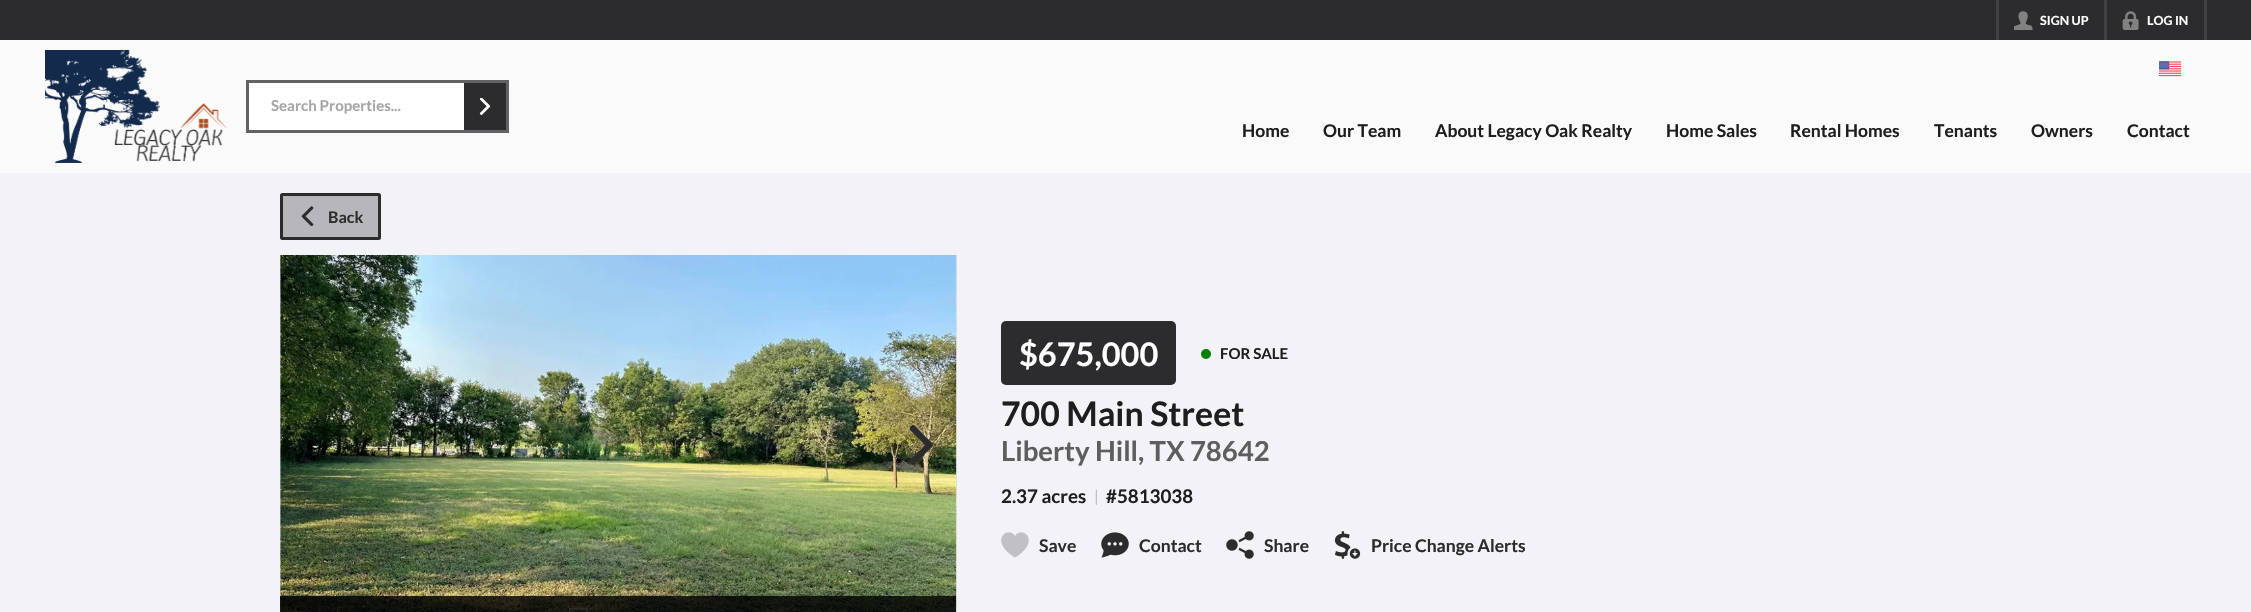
#include "include/core/SkBlurTypes.h"
#include "include/core/SkCanvas.h"
#include "include/core/SkData.h"
#include "include/core/SkFont.h"
#include "include/core/SkFontMgr.h"
#include "include/core/SkImage.h"
#include "include/core/SkMaskFilter.h"
#include "include/core/SkPaint.h"
#include "include/core/SkPathBuilder.h"
#include "include/core/SkTextBlob.h"
#include "include/effects/SkDashPathEffect.h"
#include "include/effects/SkGradientShader.h"
#include "include/utils/SkParsePath.h"

extern sk_sp<SkFontMgr> fontMgr;

static SkFont font(const char* family, int weight, float size, bool italic = false) {
    SkFontStyle style(weight, SkFontStyle::kNormal_Width,
        italic ? SkFontStyle::kItalic_Slant : SkFontStyle::kUpright_Slant);
    SkFont result(fontMgr->matchFamilyStyle(family, style), size);
    result.setSubpixel(true);
    return result;
}

static void drawLabel(SkCanvas* canvas, const char* s, float x, float y, const SkFont& font, SkColor color) {
    SkPaint ink(SkColor4f::FromColor(color));
    ink.setAntiAlias(true);
    canvas->drawString(s, x, y, font, ink);
}

static void fillRect(SkCanvas* canvas, float x, float y, float w, float h, SkColor color) {
    SkPaint ink(SkColor4f::FromColor(color));
    ink.setAntiAlias(true);
    canvas->drawRect(SkRect::MakeXYWH(x, y, w, h), ink);
}

static void fillRRect(SkCanvas* canvas, float x, float y, float w, float h, float radius, SkColor color) {
    SkPaint ink(SkColor4f::FromColor(color));
    ink.setAntiAlias(true);
    canvas->drawRoundRect(SkRect::MakeXYWH(x, y, w, h), radius, radius, ink);
}

static void drawPhoto(SkCanvas* canvas, const char* path, float x, float y, float w, float h) {
    auto image = SkImages::DeferredFromEncodedData(SkData::MakeFromFileName(path));
    canvas->drawImageRect(image, SkRect::MakeXYWH(x, y, w, h), SkSamplingOptions());
}

void draw(SkCanvas* canvas) {
    SkPaint paint;
    paint.setAntiAlias(true);
    canvas->clear(0xFFF2F2F7);
    fillRect(canvas, 0, 0, 2251, 40, 0xFF2C2C2E);
    fillRect(canvas, 2204, 0, 3, 40, 0xFF414143);
    fillRect(canvas, 1996, 0, 3, 40, 0xFF414143);
    drawPhoto(canvas, "assets/img1.png", 2014, 11, 19, 19);
    SkFont font1 = font("Lato", 700, 12.5f);
    drawLabel(canvas, "SIGN UP", 2040, 25, font1, 0xFFFFFFFF);
    fillRect(canvas, 2104, 0, 3, 40, 0xFF414143);
    drawPhoto(canvas, "assets/img2.png", 2122, 11, 17, 19);
    drawLabel(canvas, "LOG IN", 2147, 25, font1, 0xFFFFFFFF);
    fillRect(canvas, 0, 40, 2251, 133, 0xFFFAFAFA);
    drawPhoto(canvas, "assets/img3.png", 45, 50, 182, 113);
    paint.setStroke(true);
    paint.setStrokeWidth(3);
    paint.setColor(0xFF626264);
    canvas->drawRect(SkRect::MakeXYWH(247.5f, 81.5f, 260, 50), paint);
    fillRect(canvas, 249, 83, 215, 47, 0xFFFFFFFF);
    SkFont font2 = font("Lato", 700, 15);
    drawLabel(canvas, "Search Properties...", 271, 111, font2, 0xFFA5A5A5);
    fillRect(canvas, 464, 83, 42, 47, 0xFF2C2C2E);
    drawPhoto(canvas, "assets/img4.png", 479, 98, 12, 17);
    drawPhoto(canvas, "assets/img5.png", 2159, 61, 22, 16);
    SkFont font3 = font("Lato", 700, 17.5f);
    drawLabel(canvas, "Home", 1242, 137, font3, 0xFF1E1E1E);
    drawLabel(canvas, "Our Team", 1323, 137, font3, 0xFF1E1E1E);
    drawLabel(canvas, "About Legacy Oak Realty", 1435, 137, font3, 0xFF1E1E1E);
    drawLabel(canvas, "Home Sales", 1666, 137, font3, 0xFF1E1E1E);
    drawLabel(canvas, "Rental Homes", 1790, 137, font3, 0xFF1E1E1E);
    drawLabel(canvas, "Tenants", 1934, 137, font3, 0xFF1E1E1E);
    drawLabel(canvas, "Owners", 2031, 137, font3, 0xFF1E1E1E);
    drawLabel(canvas, "Contact", 2127, 137, font3, 0xFF1E1E1E);
    paint.setStroke(false);
    paint.setColor(0xFFB7B7BB);
    canvas->drawRoundRect(SkRect::MakeXYWH(281.5f, 194.5f, 98, 44), 1, 1, paint);
    paint.setStroke(true);
    paint.setColor(0xFF2C2C2E);
    canvas->drawRoundRect(SkRect::MakeXYWH(281.5f, 194.5f, 98, 44), 1, 1, paint);
    drawPhoto(canvas, "assets/img6.png", 301, 206, 13, 20);
    SkFont font4 = font("Lato", 700, 16);
    drawLabel(canvas, "Back", 328, 223, font4, 0xFF2C2C2E);
    drawPhoto(canvas, "assets/img7.png", 280, 255, 677, 357);
    drawPhoto(canvas, "assets/img8.png", 909, 425, 24, 40);
    fillRect(canvas, 280, 596, 676, 16, 0xCC000000);
    drawPhoto(canvas, "assets/img9.png", 569, 607, 19, 5);
    fillRRect(canvas, 1001, 321, 175, 64, 5, 0xFF2C2C2E);
    SkFont font5 = font("Lato", 700, 32.5f);
    drawLabel(canvas, "$675,000", 1019, 366, font5, 0xFFFFFFFF);
    paint.setStroke(false);
    paint.setColor(0xFF008000);
    canvas->drawCircle(1206, 354, 5, paint);
    drawLabel(canvas, "FOR SALE", 1220, 359, font2, 0xFF1E1E1E);
    SkFont font6 = font("Lato", 700, 33.75f);
    drawLabel(canvas, "700 Main Street", 1001, 426, font6, 0xFF1E1E1E);
    SkFont font7 = font("Lato", 700, 27.5f);
    drawLabel(canvas, "Liberty Hill, TX 78642", 1001, 461, font7, 0xFF5E5E60);
    SkFont font8 = font("Lato", 700, 18.75f);
    drawLabel(canvas, "2.37 acres", 1001, 503, font8, 0xFF1E1E1E);
    SkFont font9 = font("Lato", 400, 16);
    drawLabel(canvas, "|", 1094, 502, font9, 0xFFBDBDC1);
    drawLabel(canvas, "#5813038", 1106, 503, font8, 0xFF1E1E1E);
    drawPhoto(canvas, "assets/img10.png", 1001, 532, 28, 26);
    drawLabel(canvas, "Save", 1039, 552, font3, 0xFF2C2C2E);
    drawPhoto(canvas, "assets/img11.png", 1101, 532, 28, 26);
    drawLabel(canvas, "Contact", 1139, 552, font3, 0xFF2C2C2E);
    drawPhoto(canvas, "assets/img12.png", 1226, 531, 28, 28);
    drawLabel(canvas, "Share", 1264, 552, font3, 0xFF2C2C2E);
    drawPhoto(canvas, "assets/img13.png", 1334, 531, 27, 28);
    drawLabel(canvas, "Price Change Alerts", 1371, 552, font3, 0xFF2C2C2E);
}
